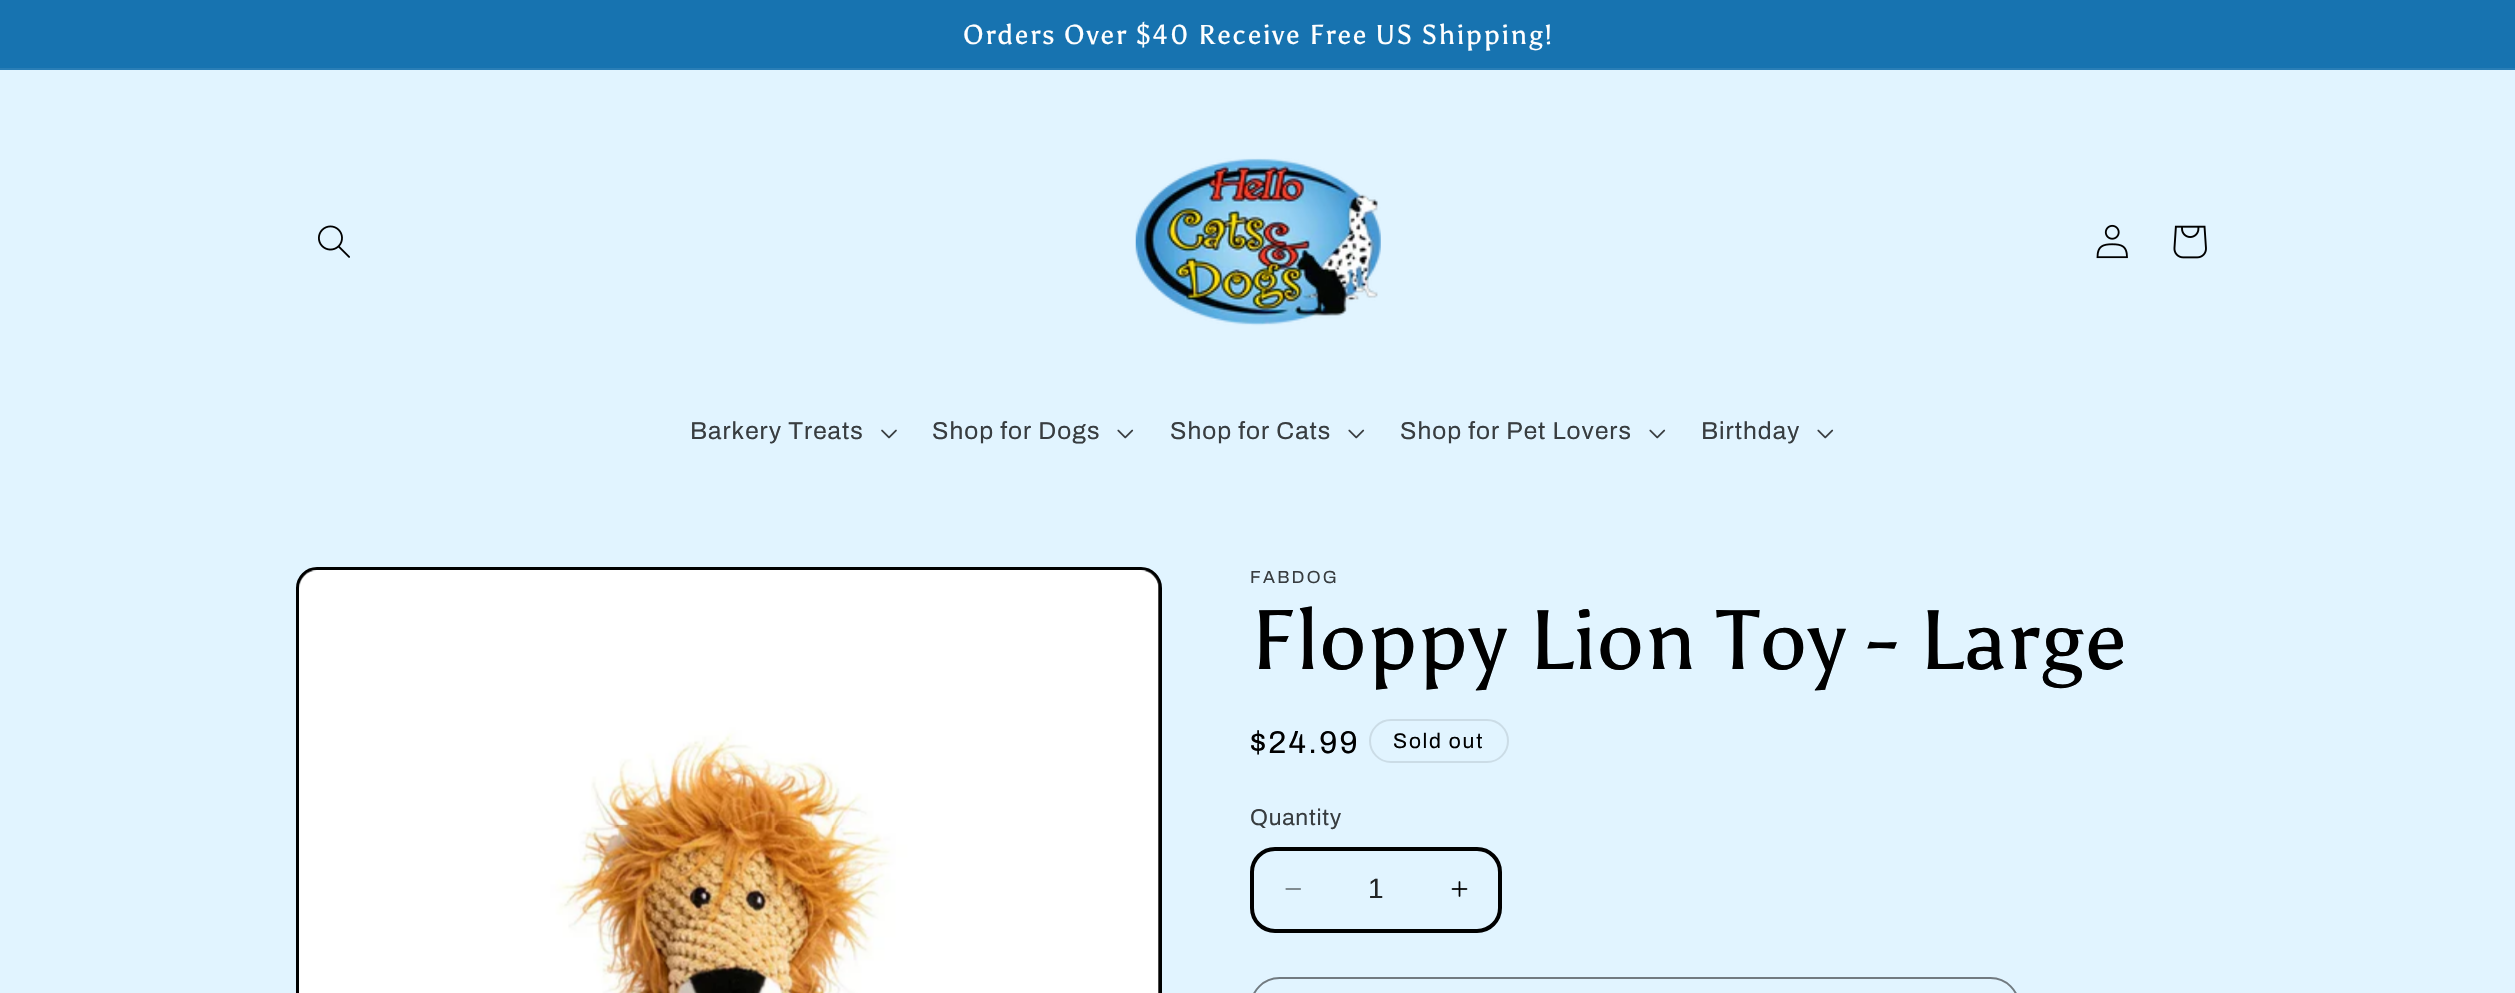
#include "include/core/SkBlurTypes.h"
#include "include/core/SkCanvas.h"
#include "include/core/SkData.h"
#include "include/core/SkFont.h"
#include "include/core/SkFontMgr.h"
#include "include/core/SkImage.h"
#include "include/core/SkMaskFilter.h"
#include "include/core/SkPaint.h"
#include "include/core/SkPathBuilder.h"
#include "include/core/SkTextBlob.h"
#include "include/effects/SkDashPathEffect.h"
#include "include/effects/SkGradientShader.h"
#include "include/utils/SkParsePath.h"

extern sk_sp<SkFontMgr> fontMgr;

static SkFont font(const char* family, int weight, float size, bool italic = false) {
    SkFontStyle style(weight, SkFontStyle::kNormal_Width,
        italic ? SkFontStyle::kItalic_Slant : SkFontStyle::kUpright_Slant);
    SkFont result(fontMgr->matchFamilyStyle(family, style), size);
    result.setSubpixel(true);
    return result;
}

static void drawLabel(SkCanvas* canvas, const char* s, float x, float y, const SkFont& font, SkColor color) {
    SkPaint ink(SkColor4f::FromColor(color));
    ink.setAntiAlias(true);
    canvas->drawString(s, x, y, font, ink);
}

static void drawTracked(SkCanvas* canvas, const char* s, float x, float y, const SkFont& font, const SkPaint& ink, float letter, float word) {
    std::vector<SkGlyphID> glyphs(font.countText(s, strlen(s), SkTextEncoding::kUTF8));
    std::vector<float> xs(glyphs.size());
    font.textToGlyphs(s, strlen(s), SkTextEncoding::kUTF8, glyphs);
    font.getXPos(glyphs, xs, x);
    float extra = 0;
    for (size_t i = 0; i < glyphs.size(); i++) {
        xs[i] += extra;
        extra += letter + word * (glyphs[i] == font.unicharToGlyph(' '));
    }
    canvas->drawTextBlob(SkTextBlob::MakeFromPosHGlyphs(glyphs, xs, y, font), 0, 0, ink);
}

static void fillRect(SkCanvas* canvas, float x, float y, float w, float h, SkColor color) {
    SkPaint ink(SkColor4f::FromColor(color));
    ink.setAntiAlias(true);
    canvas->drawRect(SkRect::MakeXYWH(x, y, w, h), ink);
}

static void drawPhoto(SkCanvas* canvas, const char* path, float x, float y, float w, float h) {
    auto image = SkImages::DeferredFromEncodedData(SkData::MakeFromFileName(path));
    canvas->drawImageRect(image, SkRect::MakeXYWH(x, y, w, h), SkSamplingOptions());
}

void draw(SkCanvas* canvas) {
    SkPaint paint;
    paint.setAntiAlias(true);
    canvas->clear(0xFFE1F4FF);
    fillRect(canvas, 0, 0, 2515, 68, 0xFF1773B0);
    fillRect(canvas, 0, 68, 2515, 2, 0xFF2A7EB6);
    SkFont font1 = font("Asul", 400, 27.3f);
    paint.setColor(0xFFFFFFFF);
    drawTracked(canvas, "Orders Over $40 Receive Free US Shipping!", 963, 44, font1, paint, 1.75f, 0);
    drawPhoto(canvas, "assets/img1.png", 318, 225, 32, 33);
    drawPhoto(canvas, "assets/img2.png", 1135, 158, 246, 168);
    drawPhoto(canvas, "assets/img3.png", 2096, 224, 32, 35);
    drawPhoto(canvas, "assets/img4.png", 2173, 225, 34, 34);
    SkFont font2 = font("Archivo", 400, 24.5f);
    paint.setColor(0xFF383D40);
    drawTracked(canvas, "Barkery Treats", 690, 439, font2, paint, 1, 0);
    drawPhoto(canvas, "assets/img5.png", 881, 429, 16, 10);
    drawTracked(canvas, "Shop for Dogs", 932, 439, font2, paint, 1, 0);
    drawPhoto(canvas, "assets/img6.png", 1117, 429, 17, 10);
    drawTracked(canvas, "Shop for Cats", 1170, 439, font2, paint, 1, 0);
    drawPhoto(canvas, "assets/img6.png", 1348, 429, 17, 10);
    drawTracked(canvas, "Shop for Pet Lovers", 1400, 439, font2, paint, 1, 0);
    drawPhoto(canvas, "assets/img6.png", 1649, 429, 17, 10);
    drawTracked(canvas, "Birthday", 1701, 439, font2, paint, 1, 0);
    drawPhoto(canvas, "assets/img6.png", 1817, 429, 17, 10);
    paint.setStroke(true);
    paint.setStrokeWidth(4);
    paint.setColor(0xFF000000);
    canvas->drawRoundRect(SkRect::MakeXYWH(298, 569, 862, 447), 19, 19, paint);
    drawPhoto(canvas, "assets/img7.png", 299, 570, 860, 423);
    SkFont font3 = font("Archivo", 400, 17.5f);
    paint.setStroke(false);
    paint.setColor(0xFF383D40);
    drawTracked(canvas, "FABDOG", 1250, 583, font3, paint, 2.25f, 0);
    SkFont font4 = font("Asul", 400, 84);
    paint.setColor(0xFF000000);
    drawTracked(canvas, "Floppy Lion Toy - Large", 1250, 669, font4, paint, 1.25f, 0);
    SkFont font5 = font("Archivo", 400, 31.5f);
    drawTracked(canvas, "$24.99", 1250, 753, font5, paint, 2.25f, 0);
    paint.setStroke(true);
    paint.setStrokeWidth(2);
    paint.setColor(0xFFCBDCE6);
    canvas->drawRoundRect(SkRect::MakeXYWH(1370, 720, 138, 42), 21, 21, paint);
    SkFont font6 = font("Archivo", 400, 21);
    paint.setStroke(false);
    paint.setColor(0xFF000000);
    drawTracked(canvas, "Sold out", 1393, 748, font6, paint, 1.75f, 0);
    SkFont font7 = font("Archivo", 400, 22.75f);
    paint.setColor(0xFF383D40);
    drawTracked(canvas, "Quantity", 1250, 825, font7, paint, 0.75f, 0);
    drawPhoto(canvas, "assets/img8.png", 1285, 888, 16, 2);
    drawPhoto(canvas, "assets/img9.png", 1451, 881, 17, 16);
    paint.setStroke(true);
    paint.setStrokeWidth(4);
    paint.setColor(0xFF000000);
    canvas->drawRoundRect(SkRect::MakeXYWH(1252, 849, 248, 82), 23, 23, paint);
    SkFont font8 = font("Liberation Sans", 400, 28);
    drawLabel(canvas, "1", 1368, 898, font8, 0xFF222526);
    paint.setStrokeWidth(2);
    paint.setColor(0xFF717A80);
    canvas->drawRoundRect(SkRect::MakeXYWH(1251, 978, 768, 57), 40, 40, paint);
}
